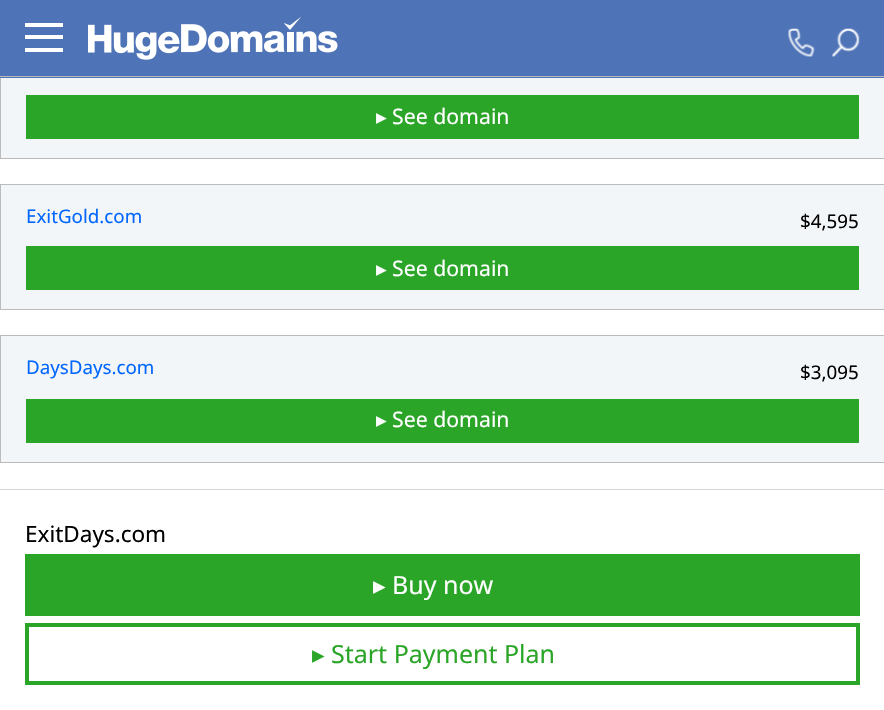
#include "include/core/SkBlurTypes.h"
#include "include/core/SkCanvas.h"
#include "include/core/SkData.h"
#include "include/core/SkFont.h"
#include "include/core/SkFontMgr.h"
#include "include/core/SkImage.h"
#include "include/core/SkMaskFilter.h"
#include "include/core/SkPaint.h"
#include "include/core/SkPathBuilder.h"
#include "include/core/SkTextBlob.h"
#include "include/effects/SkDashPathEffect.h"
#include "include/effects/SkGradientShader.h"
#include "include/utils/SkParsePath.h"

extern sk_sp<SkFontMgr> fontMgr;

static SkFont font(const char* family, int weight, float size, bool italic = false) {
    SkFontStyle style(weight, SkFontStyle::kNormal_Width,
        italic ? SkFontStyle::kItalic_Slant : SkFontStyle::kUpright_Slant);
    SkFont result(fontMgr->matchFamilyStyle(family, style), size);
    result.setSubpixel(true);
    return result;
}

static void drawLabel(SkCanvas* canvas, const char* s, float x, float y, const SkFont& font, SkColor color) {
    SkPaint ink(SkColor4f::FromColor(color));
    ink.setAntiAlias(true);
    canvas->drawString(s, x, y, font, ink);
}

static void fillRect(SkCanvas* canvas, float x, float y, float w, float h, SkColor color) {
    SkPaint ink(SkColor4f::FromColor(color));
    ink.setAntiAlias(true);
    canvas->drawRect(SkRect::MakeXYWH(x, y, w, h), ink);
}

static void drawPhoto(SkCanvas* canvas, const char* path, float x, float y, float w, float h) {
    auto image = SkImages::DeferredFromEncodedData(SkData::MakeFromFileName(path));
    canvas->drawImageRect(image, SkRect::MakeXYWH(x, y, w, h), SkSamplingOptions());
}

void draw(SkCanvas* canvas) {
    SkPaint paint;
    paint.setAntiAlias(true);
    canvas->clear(0xFFFFFFFF);
    fillRect(canvas, 1, 78, 883, 80, 0xFFF3F6F8);
    paint.setStroke(true);
    paint.setStrokeWidth(1);
    paint.setColor(0xFFBBBBBB);
    canvas->drawRect(SkRect::MakeXYWH(0.5f, 33.5f, 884, 125), paint);
    fillRect(canvas, 0, 0, 884, 78, 0xFF4E73B7);
    fillRect(canvas, 0, 76, 884, 1, 0xFFBBBBBB);
    fillRect(canvas, 25, 35, 38, 4, 0xFFFFFFFF);
    fillRect(canvas, 25, 23, 38, 4, 0xFFFFFFFF);
    fillRect(canvas, 25, 48, 38, 4, 0xFFFFFFFF);
    drawPhoto(canvas, "assets/img1.png", 88, 16, 250, 44);
    drawPhoto(canvas, "assets/img2.png", 788, 28, 27, 29);
    drawPhoto(canvas, "assets/img3.png", 832, 28, 28, 29);
    fillRect(canvas, 26, 95, 833, 44, 0xFF2AA527);
    SkFont font1 = font("DejaVu Sans", 400, 21.25f);
    drawLabel(canvas, "▸", 376, 124, font1, 0xFFFFFFFF);
    SkFont font2 = font("Noto Sans", 400, 21.25f);
    drawLabel(canvas, "See domain", 392, 124, font2, 0xFFFFFFFF);
    paint.setStroke(false);
    paint.setColor(0xFFF3F6F8);
    canvas->drawRect(SkRect::MakeXYWH(0.5f, 184.5f, 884, 125), paint);
    paint.setStroke(true);
    paint.setColor(0xFFBBBBBB);
    canvas->drawRect(SkRect::MakeXYWH(0.5f, 184.5f, 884, 125), paint);
    SkFont font3 = font("Noto Sans", 400, 18.75f);
    drawLabel(canvas, "ExitGold.com", 26, 223, font3, 0xFF0166FE);
    drawLabel(canvas, "$4,595", 800, 228, font3, 0xFF000000);
    fillRect(canvas, 26, 246, 833, 44, 0xFF2AA527);
    drawLabel(canvas, "▸", 376, 276, font1, 0xFFFFFFFF);
    drawLabel(canvas, "See domain", 392, 276, font2, 0xFFFFFFFF);
    paint.setStroke(false);
    paint.setColor(0xFFF3F6F8);
    canvas->drawRect(SkRect::MakeXYWH(0.5f, 335.5f, 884, 127), paint);
    paint.setStroke(true);
    paint.setColor(0xFFBBBBBB);
    canvas->drawRect(SkRect::MakeXYWH(0.5f, 335.5f, 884, 127), paint);
    drawLabel(canvas, "DaysDays.com", 26, 374, font3, 0xFF0166FE);
    drawLabel(canvas, "$3,095", 800, 379, font3, 0xFF000000);
    fillRect(canvas, 26, 399, 833, 44, 0xFF2AA527);
    drawLabel(canvas, "▸", 376, 427, font1, 0xFFFFFFFF);
    drawLabel(canvas, "See domain", 392, 427, font2, 0xFFFFFFFF);
    fillRect(canvas, 0, 489, 884, 1, 0xFFD2D6DA);
    SkFont font4 = font("Noto Sans", 400, 22.5f);
    drawLabel(canvas, "ExitDays.com", 25, 542, font4, 0xFF000000);
    fillRect(canvas, 25, 554, 835, 62, 0xFF2AA527);
    SkFont font5 = font("DejaVu Sans", 400, 25);
    drawLabel(canvas, "▸", 373, 594, font5, 0xFFFFFFFF);
    SkFont font6 = font("Noto Sans", 400, 25);
    drawLabel(canvas, "Buy now", 392, 594, font6, 0xFFFFFFFF);
    paint.setStrokeWidth(4);
    paint.setColor(0xFF2AA527);
    canvas->drawRect(SkRect::MakeXYWH(27, 625, 831, 58), paint);
    drawLabel(canvas, "▸", 312, 663, font5, 0xFF2AA527);
    drawLabel(canvas, "Start Payment Plan", 331, 663, font6, 0xFF2AA527);
}
